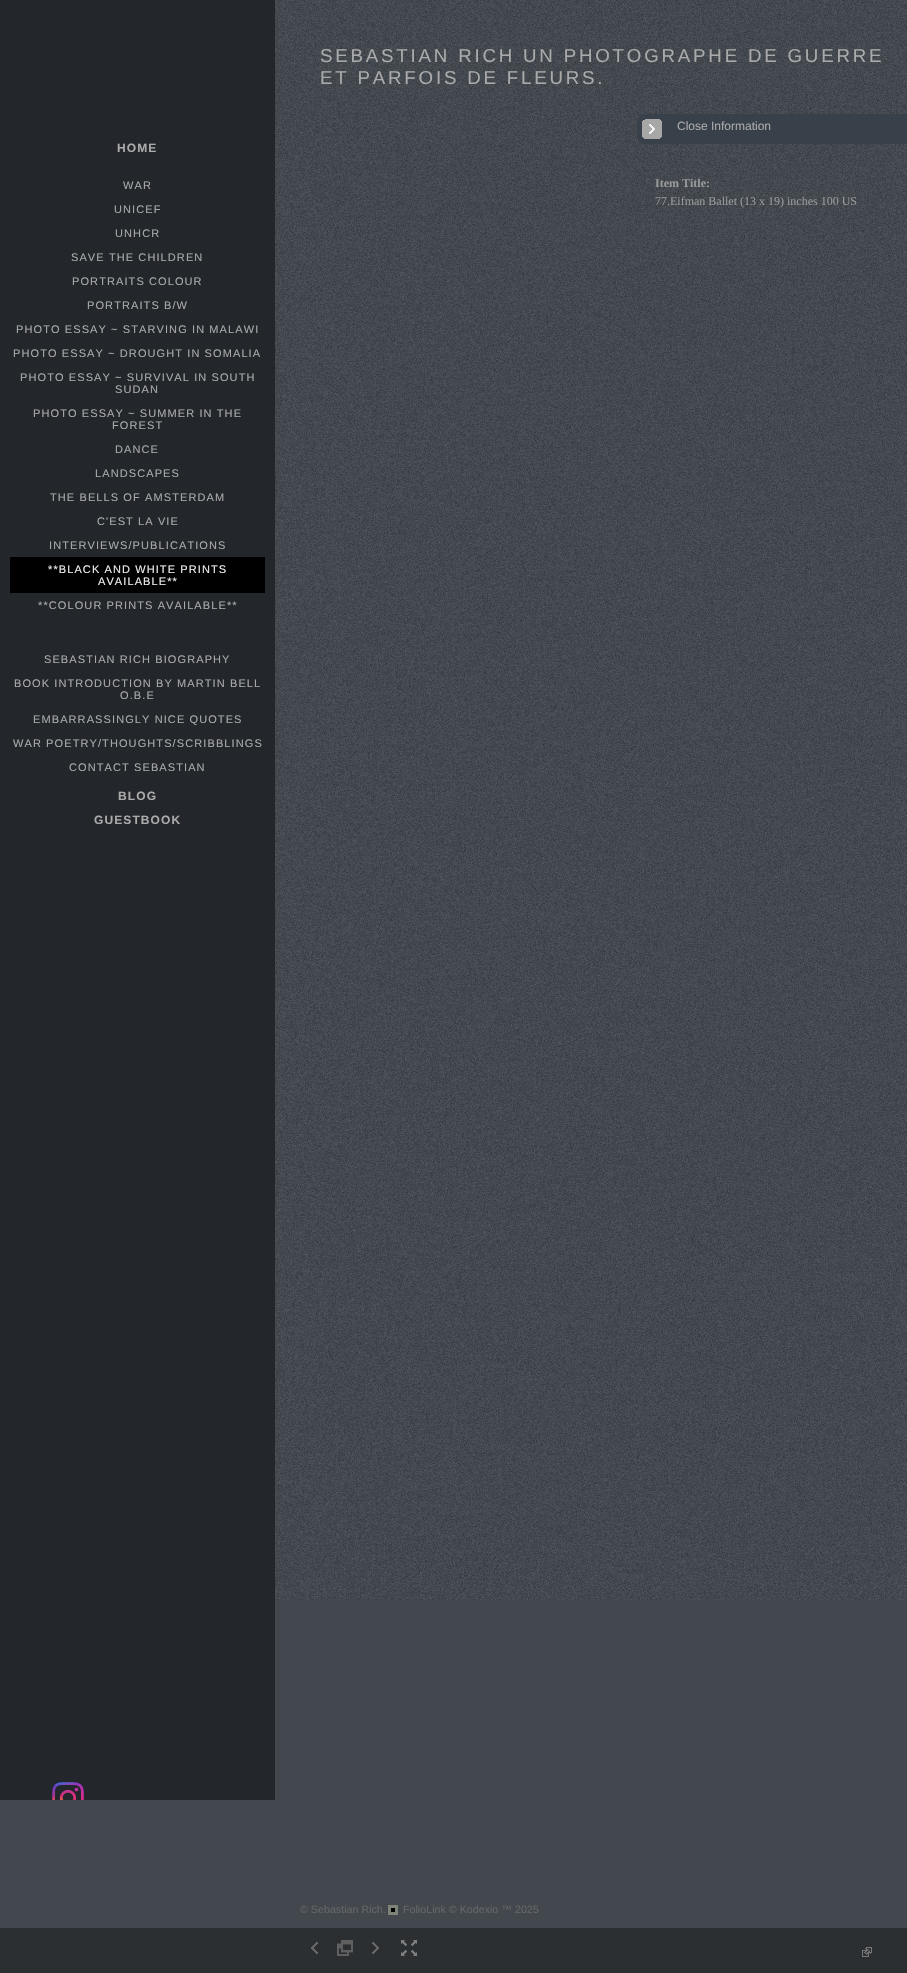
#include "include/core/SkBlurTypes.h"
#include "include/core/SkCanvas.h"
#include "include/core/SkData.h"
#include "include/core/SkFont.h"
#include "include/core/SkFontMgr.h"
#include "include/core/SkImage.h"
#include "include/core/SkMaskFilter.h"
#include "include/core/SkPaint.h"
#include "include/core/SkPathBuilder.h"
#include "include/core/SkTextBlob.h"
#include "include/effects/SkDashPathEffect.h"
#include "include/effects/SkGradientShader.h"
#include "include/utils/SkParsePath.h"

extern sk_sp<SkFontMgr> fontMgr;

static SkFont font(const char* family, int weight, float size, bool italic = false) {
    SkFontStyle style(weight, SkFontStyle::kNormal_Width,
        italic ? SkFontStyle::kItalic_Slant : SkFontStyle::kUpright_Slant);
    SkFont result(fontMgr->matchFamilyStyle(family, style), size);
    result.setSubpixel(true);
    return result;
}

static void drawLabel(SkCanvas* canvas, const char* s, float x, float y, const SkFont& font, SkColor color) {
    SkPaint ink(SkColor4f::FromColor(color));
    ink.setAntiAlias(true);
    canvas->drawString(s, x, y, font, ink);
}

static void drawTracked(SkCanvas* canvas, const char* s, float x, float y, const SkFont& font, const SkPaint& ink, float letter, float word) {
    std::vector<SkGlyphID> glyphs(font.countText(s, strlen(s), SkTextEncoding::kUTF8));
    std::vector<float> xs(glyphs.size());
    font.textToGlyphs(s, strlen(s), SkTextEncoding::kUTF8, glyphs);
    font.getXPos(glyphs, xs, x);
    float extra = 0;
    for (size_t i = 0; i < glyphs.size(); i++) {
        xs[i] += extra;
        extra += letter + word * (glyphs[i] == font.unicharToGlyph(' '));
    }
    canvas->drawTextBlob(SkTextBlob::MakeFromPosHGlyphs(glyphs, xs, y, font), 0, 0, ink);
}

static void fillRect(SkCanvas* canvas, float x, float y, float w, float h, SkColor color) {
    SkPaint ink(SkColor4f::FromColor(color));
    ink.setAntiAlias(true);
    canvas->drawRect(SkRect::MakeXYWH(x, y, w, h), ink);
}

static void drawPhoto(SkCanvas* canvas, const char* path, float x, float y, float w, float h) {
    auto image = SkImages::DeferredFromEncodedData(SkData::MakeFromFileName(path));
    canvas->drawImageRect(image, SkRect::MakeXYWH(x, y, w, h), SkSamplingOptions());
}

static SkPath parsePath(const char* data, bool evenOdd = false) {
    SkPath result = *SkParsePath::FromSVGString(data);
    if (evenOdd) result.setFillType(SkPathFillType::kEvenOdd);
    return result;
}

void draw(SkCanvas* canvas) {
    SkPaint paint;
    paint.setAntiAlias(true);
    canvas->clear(0xFF42484D);
    drawPhoto(canvas, "assets/img1.png", 0, 0, 907, 1600);
    SkFont font1 = font("Liberation Sans", 400, 18.7f);
    paint.setColor(0xFFAAAAAA);
    drawTracked(canvas, "SEBASTIAN RICH UN PHOTOGRAPHE DE GUERRE", 320, 62, font1, paint, 2.8f, 0);
    drawTracked(canvas, "ET PARFOIS DE FLEURS.", 320, 84, font1, paint, 2.8f, 0);
    fillRect(canvas, 0, 0, 275, 1800, 0xFC22262A);
    SkFont font2 = font("Liberation Sans", 700, 12);
    drawTracked(canvas, "HOME", 117, 152, font2, paint, 1.1f, 0);
    SkFont font3 = font("Liberation Sans", 400, 11);
    drawTracked(canvas, "WAR", 123, 189, font3, paint, 1.1f, 0);
    drawTracked(canvas, "UNICEF", 114, 213, font3, paint, 1.1f, 0);
    drawTracked(canvas, "UNHCR", 115, 237, font3, paint, 1.1f, 0);
    drawTracked(canvas, "SAVE THE CHILDREN", 71, 261, font3, paint, 1.1f, 0);
    drawTracked(canvas, "PORTRAITS COLOUR", 72, 285, font3, paint, 1.1f, 0);
    drawTracked(canvas, "PORTRAITS B/W", 87, 309, font3, paint, 1.1f, 0);
    drawTracked(canvas, "PHOTO ESSAY ~ STARVING IN MALAWI", 16, 333, font3, paint, 1.1f, 0);
    drawTracked(canvas, "PHOTO ESSAY ~ DROUGHT IN SOMALIA", 13, 357, font3, paint, 1.1f, 0);
    drawTracked(canvas, "PHOTO ESSAY ~ SURVIVAL IN SOUTH", 20, 381, font3, paint, 1.1f, 0);
    drawTracked(canvas, "SUDAN", 115, 393, font3, paint, 1.1f, 0);
    drawTracked(canvas, "PHOTO ESSAY ~ SUMMER IN THE", 33, 417, font3, paint, 1.1f, 0);
    drawTracked(canvas, "FOREST", 112, 429, font3, paint, 1.1f, 0);
    drawTracked(canvas, "DANCE", 115, 453, font3, paint, 1.1f, 0);
    drawTracked(canvas, "LANDSCAPES", 95, 477, font3, paint, 1.1f, 0);
    drawTracked(canvas, "THE BELLS OF AMSTERDAM", 50, 501, font3, paint, 1.1f, 0);
    drawTracked(canvas, "C'EST LA VIE", 97, 525, font3, paint, 1.1f, 0);
    drawTracked(canvas, "INTERVIEWS/PUBLICATIONS", 49, 549, font3, paint, 1.1f, 0);
    fillRect(canvas, 10, 557, 255, 36, 0xFF000000);
    paint.setColor(0xFFEEEEEE);
    drawTracked(canvas, "**BLACK AND WHITE PRINTS", 48, 573, font3, paint, 1.1f, 0);
    drawTracked(canvas, "AVAILABLE**", 98, 585, font3, paint, 1.1f, 0);
    paint.setColor(0xFFAAAAAA);
    drawTracked(canvas, "**COLOUR PRINTS AVAILABLE**", 38, 609, font3, paint, 1.1f, 0);
    drawTracked(canvas, "SEBASTIAN RICH BIOGRAPHY", 44, 663, font3, paint, 1.1f, 0);
    drawTracked(canvas, "BOOK INTRODUCTION BY MARTIN BELL", 14, 687, font3, paint, 1.1f, 0);
    drawTracked(canvas, "O.B.E", 120, 699, font3, paint, 1.1f, 0);
    drawTracked(canvas, "EMBARRASSINGLY NICE QUOTES", 33, 723, font3, paint, 1.1f, 0);
    drawTracked(canvas, "WAR POETRY/THOUGHTS/SCRIBBLINGS", 13, 747, font3, paint, 1.1f, 0);
    drawTracked(canvas, "CONTACT SEBASTIAN", 69, 771, font3, paint, 1.1f, 0);
    drawTracked(canvas, "BLOG", 118, 800, font2, paint, 1.1f, 0);
    drawTracked(canvas, "GUESTBOOK", 94, 824, font2, paint, 1.1f, 0);
    drawPhoto(canvas, "assets/img2.png", 52, 1782, 32, 18);
    paint.setColor(0xFF384149);
    canvas->drawPath(parsePath("M645 114H907V144H645C640.5 144 637 140.5 637 136V122C637 117.5 640.5 114 645 114Z"), paint);
    drawPhoto(canvas, "assets/img3.png", 642, 119, 20, 20);
    SkFont font4 = font("Liberation Sans", 400, 12);
    drawLabel(canvas, "Close Information", 677, 130, font4, 0xFFAAAAAA);
    SkFont font5 = font("Liberation Serif", 700, 12);
    drawLabel(canvas, "Item Title:", 655, 187, font5, 0xFF999999);
    SkFont font6 = font("Liberation Serif", 400, 12);
    drawLabel(canvas, "77.Eifman Ballet (13 x 19) inches 100 US", 655, 205, font6, 0xFF999999);
    SkFont font7 = font("Liberation Sans", 400, 10.7f);
    drawLabel(canvas, "© Sebastian Rich.", 300, 1913, font7, 0xFF666666);
    drawPhoto(canvas, "assets/img4.png", 388, 1905, 10, 10);
    drawLabel(canvas, "FolioLink © Kodexio ™ 2025", 403, 1913, font7, 0xFF666666);
    fillRect(canvas, 0, 1928, 907, 45, 0xFF2B2F32);
    drawPhoto(canvas, "assets/img5.png", 311, 1942, 7, 12);
    drawPhoto(canvas, "assets/img6.png", 337, 1940, 16, 16);
    drawPhoto(canvas, "assets/img7.png", 337, 1943, 16, 10);
    drawPhoto(canvas, "assets/img8.png", 372, 1942, 7, 12);
    drawPhoto(canvas, "assets/img9.png", 401, 1940, 16, 16);
    drawPhoto(canvas, "assets/img10.png", 862, 1947, 10, 10);
}
